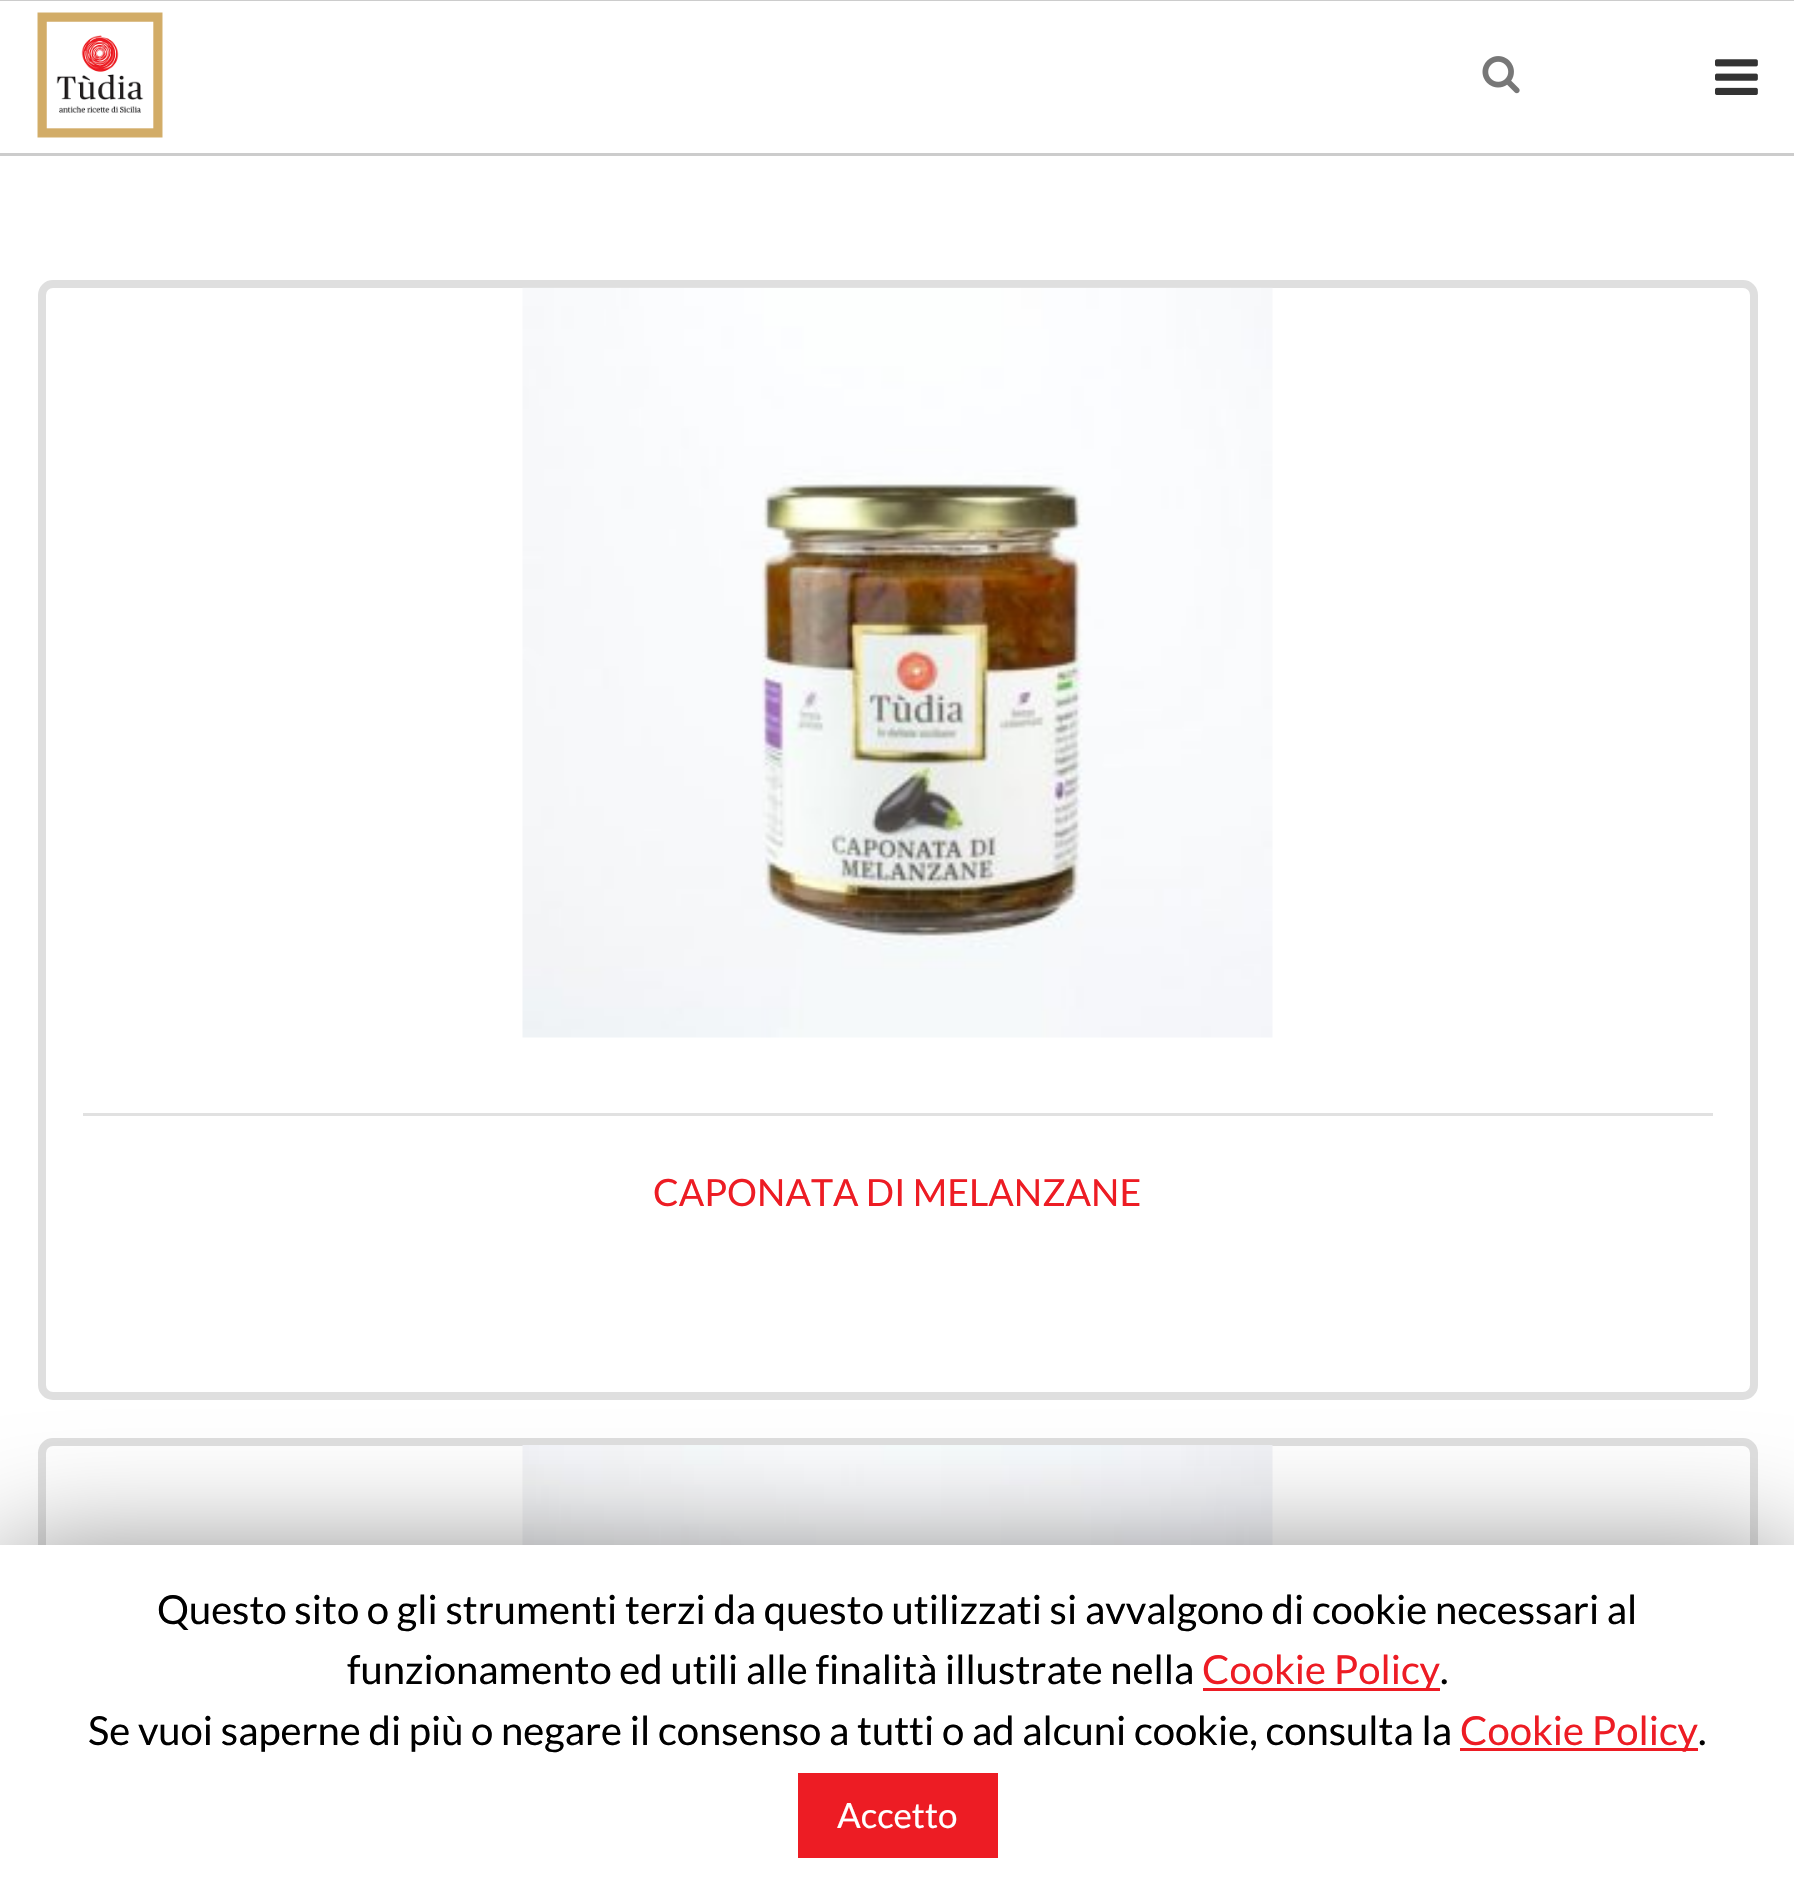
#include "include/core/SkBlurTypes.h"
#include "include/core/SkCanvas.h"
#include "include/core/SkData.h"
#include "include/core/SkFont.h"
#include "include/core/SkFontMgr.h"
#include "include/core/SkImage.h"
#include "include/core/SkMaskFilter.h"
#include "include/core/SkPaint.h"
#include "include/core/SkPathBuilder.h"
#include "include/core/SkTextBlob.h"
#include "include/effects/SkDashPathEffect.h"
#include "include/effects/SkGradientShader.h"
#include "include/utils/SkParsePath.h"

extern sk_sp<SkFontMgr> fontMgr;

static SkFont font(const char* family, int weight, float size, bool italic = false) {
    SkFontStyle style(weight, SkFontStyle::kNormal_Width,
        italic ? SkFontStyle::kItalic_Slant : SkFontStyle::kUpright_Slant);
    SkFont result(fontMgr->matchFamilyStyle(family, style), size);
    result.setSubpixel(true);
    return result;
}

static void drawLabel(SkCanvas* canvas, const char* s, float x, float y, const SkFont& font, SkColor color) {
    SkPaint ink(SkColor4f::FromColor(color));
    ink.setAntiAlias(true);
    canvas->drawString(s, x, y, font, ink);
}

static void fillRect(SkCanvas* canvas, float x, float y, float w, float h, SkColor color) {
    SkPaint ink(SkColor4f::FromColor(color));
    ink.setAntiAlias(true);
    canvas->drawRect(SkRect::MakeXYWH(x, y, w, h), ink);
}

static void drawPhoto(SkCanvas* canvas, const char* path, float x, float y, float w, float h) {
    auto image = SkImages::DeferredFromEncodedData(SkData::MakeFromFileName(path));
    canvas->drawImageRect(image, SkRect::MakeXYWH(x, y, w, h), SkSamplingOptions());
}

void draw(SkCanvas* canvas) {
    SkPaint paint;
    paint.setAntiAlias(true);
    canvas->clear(0xFFFFFFFF);
    fillRect(canvas, 0, 0, 1794, 1, 0xFFCCCCCC);
    fillRect(canvas, 0, 153, 1794, 3, 0xFFCCCCCC);
    drawPhoto(canvas, "assets/img1.png", 1715, 59, 43, 36);
    drawPhoto(canvas, "assets/img2.png", 37, 12, 126, 126);
    drawPhoto(canvas, "assets/img3.png", 1482, 56, 38, 38);
    fillRect(canvas, 83, 1113, 1630, 3, 0xFFE1E1E1);
    paint.setStroke(true);
    paint.setStrokeWidth(8);
    paint.setColor(0xFFDFDFDF);
    canvas->drawRoundRect(SkRect::MakeXYWH(42, 284, 1712, 1112), 11, 11, paint);
    drawPhoto(canvas, "assets/img4.png", 522, 287, 751, 751);
    SkFont font1 = font("Lato", 400, 37.5f);
    drawLabel(canvas, "CAPONATA DI MELANZANE", 653, 1206, font1, 0xFFED1C24);
    canvas->drawRoundRect(SkRect::MakeXYWH(42, 1442, 1712, 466), 11, 11, paint);
    drawPhoto(canvas, "assets/img5.png", 522, 1445, 751, 100);
    paint.setStroke(false);
    paint.setColor(0x80000000);
    paint.setMaskFilter(SkMaskFilter::MakeBlur(kNormal_SkBlurStyle, 62.5f));
    canvas->drawRect(SkRect::MakeXYWH(0, 1558, 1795, 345), paint);
    paint.setMaskFilter(nullptr);
    fillRect(canvas, 0, 1545, 1794, 344, 0xFFFFFFFF);
    SkFont font2 = font("Lato", 400, 40);
    drawLabel(canvas, "Questo sito o gli strumenti terzi da questo utilizzati si avvalgono di cookie necessari al", 157, 1624, font2, 0xFF000000);
    drawLabel(canvas, "funzionamento ed utili alle finalità illustrate nella", 347, 1684, font2, 0xFF000000);
    fillRect(canvas, 1203, 1688, 237, 3, 0xFFED1C24);
    drawLabel(canvas, "Cookie Policy", 1202, 1684, font2, 0xFFED1C24);
    drawLabel(canvas, ".", 1440, 1684, font2, 0xFF000000);
    drawLabel(canvas, "Se vuoi saperne di più o negare il consenso a tutti o ad alcuni cookie, consulta la", 88, 1745, font2, 0xFF000000);
    fillRect(canvas, 1460, 1748, 238, 3, 0xFFED1C24);
    drawLabel(canvas, "Cookie Policy", 1460, 1745, font2, 0xFFED1C24);
    drawLabel(canvas, ".", 1698, 1745, font2, 0xFF000000);
    fillRect(canvas, 798, 1773, 200, 85, 0xFFED1C24);
    SkFont font3 = font("Lato", 400, 35);
    drawLabel(canvas, "Accetto", 837, 1828, font3, 0xFFFFFFFF);
}
